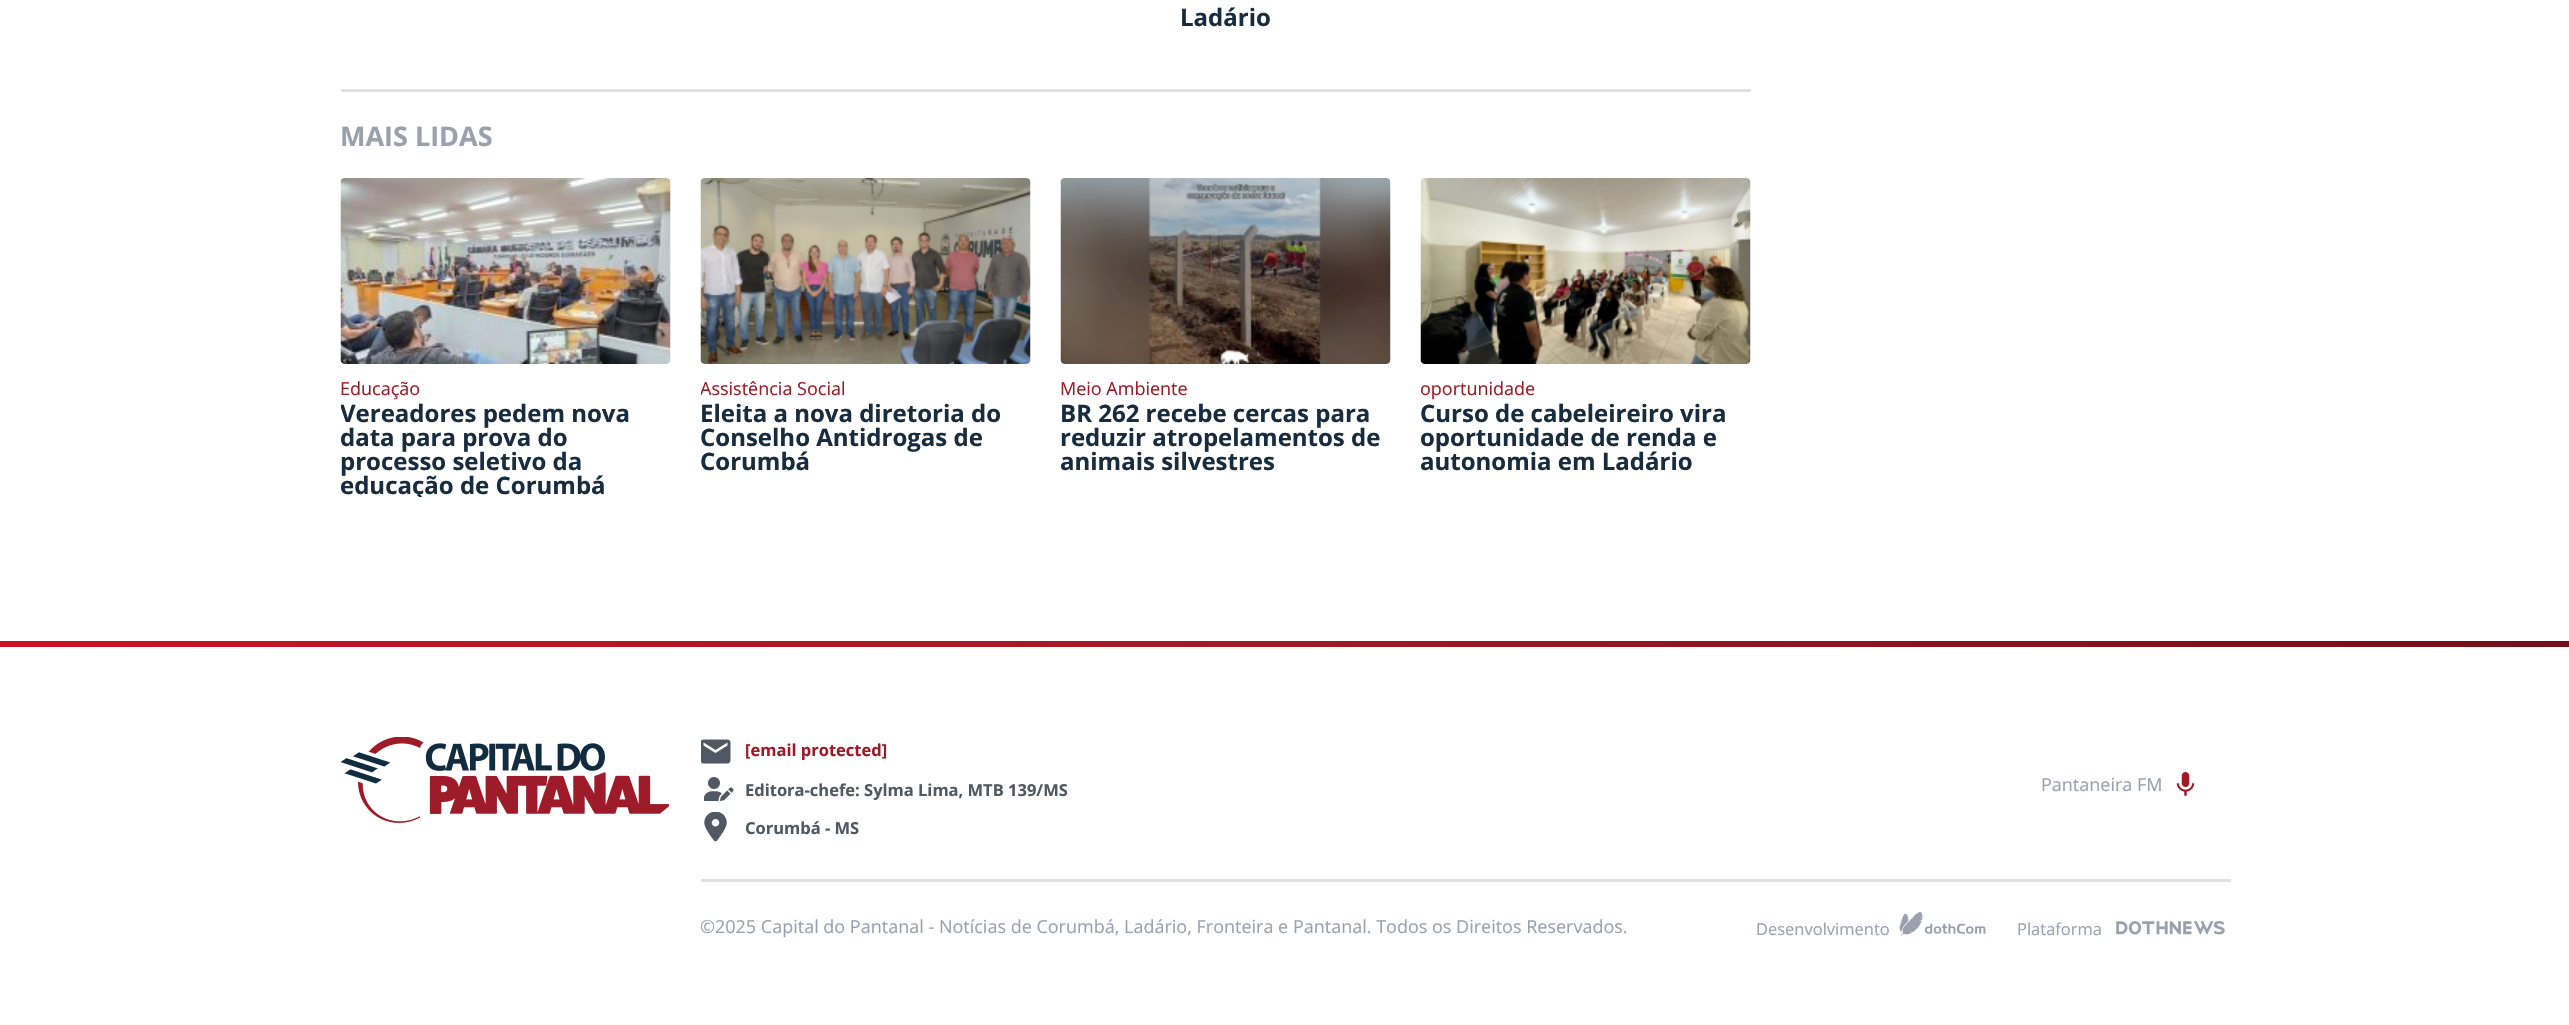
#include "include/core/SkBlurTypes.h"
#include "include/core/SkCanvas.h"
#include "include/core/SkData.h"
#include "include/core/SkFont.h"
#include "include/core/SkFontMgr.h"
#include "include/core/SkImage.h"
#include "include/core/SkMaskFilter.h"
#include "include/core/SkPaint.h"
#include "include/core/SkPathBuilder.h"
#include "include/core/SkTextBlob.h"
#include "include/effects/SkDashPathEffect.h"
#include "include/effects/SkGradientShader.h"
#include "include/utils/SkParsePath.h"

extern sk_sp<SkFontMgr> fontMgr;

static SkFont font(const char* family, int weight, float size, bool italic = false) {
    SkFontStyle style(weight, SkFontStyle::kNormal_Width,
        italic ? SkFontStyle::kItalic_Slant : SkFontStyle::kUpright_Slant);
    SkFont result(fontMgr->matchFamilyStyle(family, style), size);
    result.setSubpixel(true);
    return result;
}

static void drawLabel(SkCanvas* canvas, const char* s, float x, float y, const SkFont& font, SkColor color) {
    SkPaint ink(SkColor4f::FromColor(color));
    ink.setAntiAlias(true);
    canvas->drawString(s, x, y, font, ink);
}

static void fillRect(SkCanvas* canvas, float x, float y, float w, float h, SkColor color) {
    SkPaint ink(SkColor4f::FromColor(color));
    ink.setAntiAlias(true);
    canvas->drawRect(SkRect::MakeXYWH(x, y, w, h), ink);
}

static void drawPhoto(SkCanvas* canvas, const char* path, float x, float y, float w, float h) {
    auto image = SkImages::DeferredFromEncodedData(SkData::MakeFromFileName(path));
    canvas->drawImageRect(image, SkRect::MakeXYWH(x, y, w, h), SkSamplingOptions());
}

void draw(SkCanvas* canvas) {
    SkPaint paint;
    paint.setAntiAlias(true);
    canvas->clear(0xFFFFFFFF);
    SkFont font1 = font("Open Sans", 700, 24);
    drawLabel(canvas, "Ladário", 1180, 26, font1, 0xFF182C3F);
    fillRect(canvas, 341, 89, 1410, 3, 0xFFDEE0E6);
    SkFont font2 = font("Open Sans", 700, 27);
    drawLabel(canvas, "MAIS LIDAS", 340, 146, font2, 0xFF9AA0AD);
    drawPhoto(canvas, "assets/img1.png", 340, 178, 331, 186);
    SkFont font3 = font("Open Sans", 400, 18);
    drawLabel(canvas, "Educação", 340, 395, font3, 0xFF9E1A27);
    canvas->save();
    canvas->clipRect(SkRect::MakeXYWH(341, 179, 330, 318));
    drawLabel(canvas, "Vereadores pedem nova", 340, 422, font1, 0xFF182C3F);
    drawLabel(canvas, "data para prova do", 340, 446, font1, 0xFF182C3F);
    canvas->restore();
    drawLabel(canvas, "processo seletivo da", 340, 470, font1, 0xFF182C3F);
    canvas->save();
    canvas->clipRect(SkRect::MakeXYWH(341, 179, 330, 318));
    drawLabel(canvas, "educação de Corumbá", 340, 494, font1, 0xFF182C3F);
    canvas->restore();
    drawPhoto(canvas, "assets/img2.png", 700, 178, 331, 186);
    canvas->save();
    canvas->clipRect(SkRect::MakeXYWH(701, 179, 330, 294));
    drawLabel(canvas, "Assistência Social", 700, 395, font3, 0xFF9E1A27);
    canvas->restore();
    drawLabel(canvas, "Eleita a nova diretoria do", 700, 422, font1, 0xFF182C3F);
    drawLabel(canvas, "Conselho Antidrogas de", 700, 446, font1, 0xFF182C3F);
    drawLabel(canvas, "Corumbá", 700, 470, font1, 0xFF182C3F);
    drawPhoto(canvas, "assets/img3.png", 1060, 178, 331, 186);
    drawLabel(canvas, "Meio Ambiente", 1060, 395, font3, 0xFF9E1A27);
    drawLabel(canvas, "BR 262 recebe cercas para", 1060, 422, font1, 0xFF182C3F);
    drawLabel(canvas, "reduzir atropelamentos de", 1060, 446, font1, 0xFF182C3F);
    canvas->save();
    canvas->clipRect(SkRect::MakeXYWH(1061, 179, 330, 294));
    drawLabel(canvas, "animais silvestres", 1060, 470, font1, 0xFF182C3F);
    canvas->restore();
    drawPhoto(canvas, "assets/img4.png", 1420, 178, 331, 186);
    canvas->save();
    canvas->clipRect(SkRect::MakeXYWH(1421, 179, 330, 294));
    drawLabel(canvas, "oportunidade", 1420, 395, font3, 0xFF9E1A27);
    canvas->restore();
    drawLabel(canvas, "Curso de cabeleireiro vira", 1420, 422, font1, 0xFF182C3F);
    canvas->save();
    canvas->clipRect(SkRect::MakeXYWH(1421, 179, 330, 294));
    drawLabel(canvas, "oportunidade de renda e", 1420, 446, font1, 0xFF182C3F);
    drawLabel(canvas, "autonomia em Ladário", 1420, 470, font1, 0xFF182C3F);
    canvas->restore();
    {
        const SkColor colors[] = {0xFFCB1225, 0xFF9E1A27, 0xFF740E18};
        const float stops[] = {0, 0.5f, 1};
        const SkPoint ends[] = {{0, 644}, {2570, 643}};
        paint.setShader(SkGradientShader::MakeLinear(ends, colors, stops, 3, SkTileMode::kClamp));
        paint.setAlpha(255);
    }
    canvas->drawRect(SkRect::MakeXYWH(0, 641, 2569, 6), paint);
    drawPhoto(canvas, "assets/img5.png", 341, 737, 328, 86);
    drawPhoto(canvas, "assets/img6.png", 701, 739, 30, 25);
    SkFont font4 = font("Open Sans", 700, 16.5f);
    drawLabel(canvas, "[email protected]", 745, 756, font4, 0xFF9E1A27);
    drawPhoto(canvas, "assets/img7.png", 704, 777, 30, 24);
    drawLabel(canvas, "Editora-chefe: Sylma Lima, MTB 139/MS", 745, 796, font4, 0xFF4F5863);
    drawLabel(canvas, "Pantaneira FM", 2041, 791, font3, 0xFF9AA0AD);
    drawPhoto(canvas, "assets/img8.png", 2176, 772, 19, 24);
    drawPhoto(canvas, "assets/img9.png", 704, 812, 23, 30);
    drawLabel(canvas, "Corumbá - MS", 745, 834, font4, 0xFF4F5863);
    fillRect(canvas, 701, 879, 1530, 3, 0xFFDEE0E6);
    drawLabel(canvas, "©2025 Capital do Pantanal - Notícias de Corumbá, Ladário, Fronteira e Pantanal. Todos os Direitos Reservados.", 700, 933, font3, 0xFF9AA0AD);
    SkFont font5 = font("Open Sans", 400, 16.5f);
    drawLabel(canvas, "Desenvolvimento", 1756, 935, font5, 0xFF9AA0AD);
    drawPhoto(canvas, "assets/img10.png", 1899, 912, 87, 24);
    drawLabel(canvas, "Plataforma", 2017, 935, font5, 0xFF9AA0AD);
    drawPhoto(canvas, "assets/img11.png", 2116, 921, 109, 14);
}
